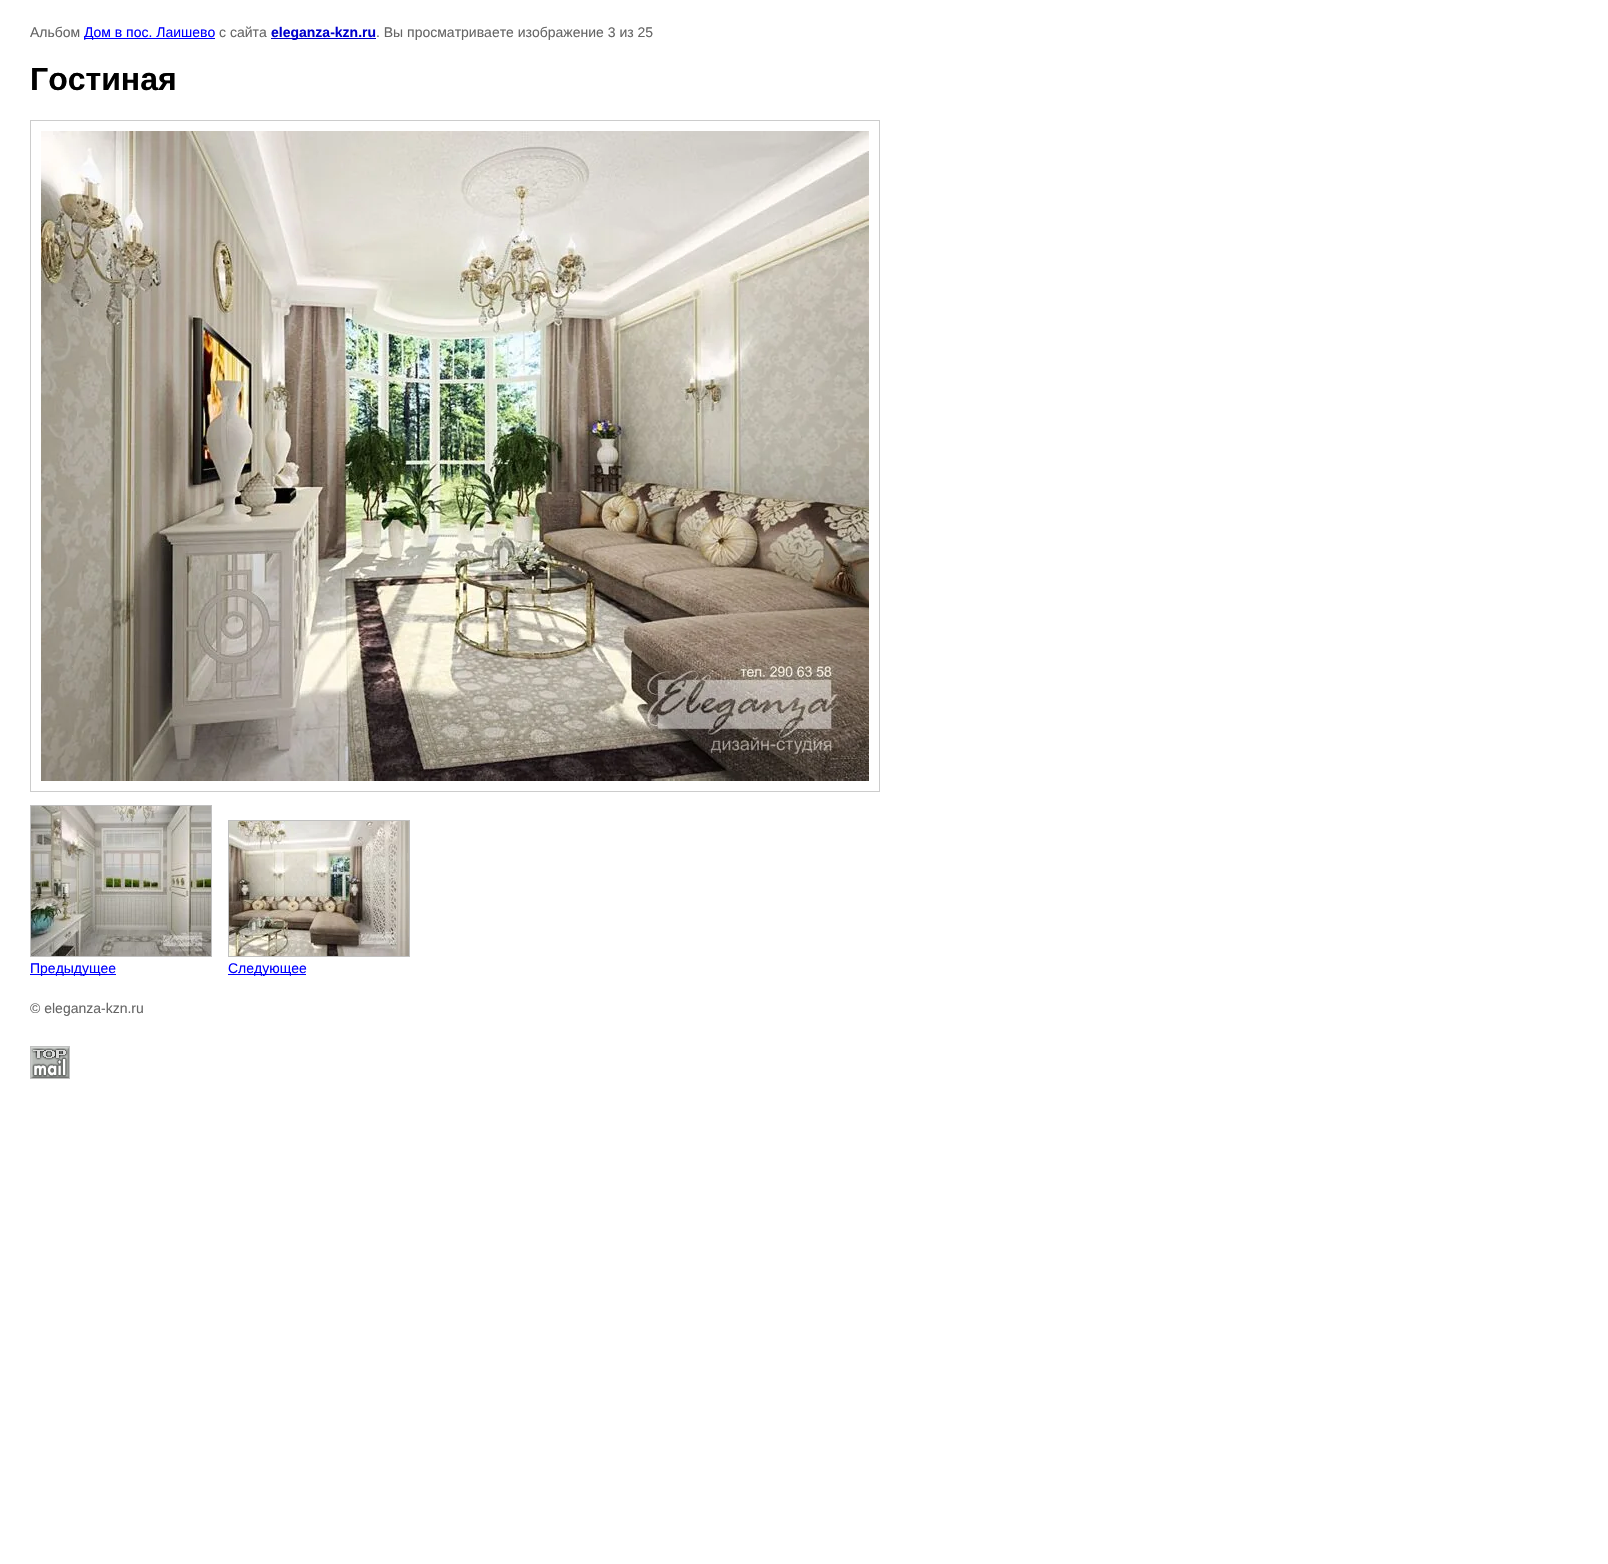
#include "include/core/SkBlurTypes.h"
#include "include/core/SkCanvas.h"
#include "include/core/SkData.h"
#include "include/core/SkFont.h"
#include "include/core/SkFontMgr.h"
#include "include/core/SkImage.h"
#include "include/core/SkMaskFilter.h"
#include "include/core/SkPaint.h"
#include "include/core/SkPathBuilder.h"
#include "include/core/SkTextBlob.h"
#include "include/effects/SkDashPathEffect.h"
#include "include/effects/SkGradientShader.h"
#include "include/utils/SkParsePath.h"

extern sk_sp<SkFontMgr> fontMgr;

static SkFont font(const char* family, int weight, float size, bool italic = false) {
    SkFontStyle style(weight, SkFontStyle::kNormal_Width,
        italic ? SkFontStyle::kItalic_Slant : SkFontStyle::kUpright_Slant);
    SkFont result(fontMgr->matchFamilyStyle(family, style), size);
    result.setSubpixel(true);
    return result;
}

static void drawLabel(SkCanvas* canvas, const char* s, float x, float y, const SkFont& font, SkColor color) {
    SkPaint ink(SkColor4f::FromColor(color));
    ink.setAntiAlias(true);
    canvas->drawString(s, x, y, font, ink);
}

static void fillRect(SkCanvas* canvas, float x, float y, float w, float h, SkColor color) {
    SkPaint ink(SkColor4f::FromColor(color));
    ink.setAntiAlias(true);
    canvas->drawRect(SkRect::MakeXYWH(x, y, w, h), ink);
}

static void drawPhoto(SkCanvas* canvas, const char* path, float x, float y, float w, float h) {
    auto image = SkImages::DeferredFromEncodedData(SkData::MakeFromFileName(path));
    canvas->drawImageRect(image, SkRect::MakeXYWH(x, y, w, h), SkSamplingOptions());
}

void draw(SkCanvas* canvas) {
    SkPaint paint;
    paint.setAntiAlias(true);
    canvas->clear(0xFFFFFFFF);
    SkFont font1 = font("Liberation Sans", 400, 14);
    drawLabel(canvas, "Альбом", 30, 37, font1, 0xFF666666);
    fillRect(canvas, 84, 38, 131, 1, 0xFF0000FF);
    drawLabel(canvas, "Дом в пос. Лаишево", 84, 37, font1, 0xFF0000FF);
    drawLabel(canvas, "с сайта", 219, 37, font1, 0xFF666666);
    fillRect(canvas, 271, 38, 105, 1, 0xFF0000CC);
    SkFont font2 = font("Liberation Sans", 700, 14);
    drawLabel(canvas, "eleganza-kzn.ru", 271, 37, font2, 0xFF0000CC);
    drawLabel(canvas, ". Вы просматриваете изображение 3 из 25", 376, 37, font1, 0xFF666666);
    SkFont font3 = font("Liberation Sans", 700, 32);
    drawLabel(canvas, "Гостиная", 30, 90, font3, 0xFF000000);
    paint.setStroke(true);
    paint.setStrokeWidth(1);
    paint.setColor(0xFFCCCCCC);
    canvas->drawRect(SkRect::MakeXYWH(30.5f, 120.5f, 849, 671), paint);
    drawPhoto(canvas, "assets/img1.png", 41, 131, 828, 650);
    paint.setColor(0xFFC0C0C0);
    canvas->drawRect(SkRect::MakeXYWH(30.5f, 805.5f, 181, 151), paint);
    drawPhoto(canvas, "assets/img2.png", 31, 806, 180, 150);
    fillRect(canvas, 30, 974, 86, 1, 0xFF0000FF);
    drawLabel(canvas, "Предыдущее", 30, 973, font1, 0xFF0000FF);
    canvas->drawRect(SkRect::MakeXYWH(228.5f, 820.5f, 181, 136), paint);
    drawPhoto(canvas, "assets/img3.png", 229, 821, 180, 135);
    fillRect(canvas, 228, 974, 78, 1, 0xFF0000FF);
    drawLabel(canvas, "Следующее", 228, 973, font1, 0xFF0000FF);
    drawLabel(canvas, "© eleganza-kzn.ru", 30, 1013, font1, 0xFF666666);
    canvas->drawRect(SkRect::MakeXYWH(30.5f, 1046.5f, 39, 32), paint);
    drawPhoto(canvas, "assets/img4.png", 31, 1047, 38, 31);
}
